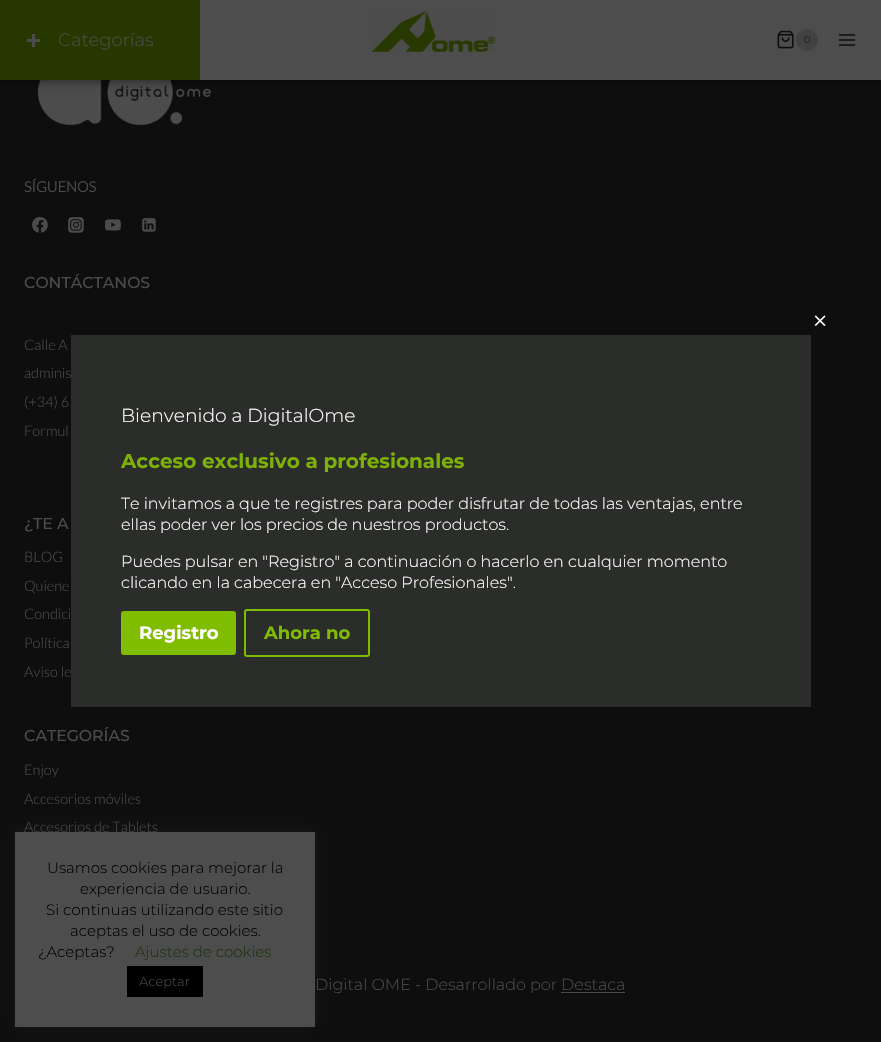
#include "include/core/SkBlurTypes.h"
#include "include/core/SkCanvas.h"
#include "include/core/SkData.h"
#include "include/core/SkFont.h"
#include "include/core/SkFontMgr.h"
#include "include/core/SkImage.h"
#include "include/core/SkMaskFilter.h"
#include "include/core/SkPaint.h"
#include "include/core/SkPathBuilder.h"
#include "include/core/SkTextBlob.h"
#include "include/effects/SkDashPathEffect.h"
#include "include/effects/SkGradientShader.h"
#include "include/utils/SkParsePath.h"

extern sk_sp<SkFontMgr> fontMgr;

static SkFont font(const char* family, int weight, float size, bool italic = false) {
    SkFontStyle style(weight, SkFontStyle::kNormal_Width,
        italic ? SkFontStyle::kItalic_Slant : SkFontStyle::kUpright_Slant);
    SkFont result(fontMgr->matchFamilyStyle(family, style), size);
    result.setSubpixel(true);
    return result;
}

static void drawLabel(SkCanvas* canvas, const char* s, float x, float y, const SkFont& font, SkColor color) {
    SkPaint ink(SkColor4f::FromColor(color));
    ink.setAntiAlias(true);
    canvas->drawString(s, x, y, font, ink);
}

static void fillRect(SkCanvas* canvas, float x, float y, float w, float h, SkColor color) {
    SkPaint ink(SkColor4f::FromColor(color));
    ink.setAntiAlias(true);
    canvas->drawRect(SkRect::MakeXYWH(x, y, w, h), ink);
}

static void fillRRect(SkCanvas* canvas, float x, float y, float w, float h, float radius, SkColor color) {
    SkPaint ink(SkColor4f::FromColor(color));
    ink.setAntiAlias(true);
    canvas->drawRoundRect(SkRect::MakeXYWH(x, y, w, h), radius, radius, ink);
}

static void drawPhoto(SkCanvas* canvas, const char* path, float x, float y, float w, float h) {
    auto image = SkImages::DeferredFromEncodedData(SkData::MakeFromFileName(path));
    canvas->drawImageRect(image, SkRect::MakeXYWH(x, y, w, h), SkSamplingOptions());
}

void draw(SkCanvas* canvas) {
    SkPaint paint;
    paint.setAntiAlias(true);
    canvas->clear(0xFF0D0E0D);
    drawPhoto(canvas, "assets/img5.png", 37, 80, 175, 46);
    paint.setColor(0x80000000);
    paint.setMaskFilter(SkMaskFilter::MakeBlur(kNormal_SkBlurStyle, 5));
    canvas->drawRect(SkRect::MakeXYWH(0, 1, 881, 80), paint);
    paint.setMaskFilter(nullptr);
    fillRect(canvas, 200, 0, 681, 80, 0xFF4D4D4D);
    fillRect(canvas, 0, 0, 200, 80, 0xFF263800);
    drawPhoto(canvas, "assets/img1.png", 27, 34, 13, 13);
    SkFont font1 = font("Montserrat", 300, 18);
    drawLabel(canvas, "Categorías", 58, 46, font1, 0xFF4A4B4C);
    drawPhoto(canvas, "assets/img2.png", 371, 11, 125, 41);
    drawPhoto(canvas, "assets/img3.png", 777, 30, 17, 19);
    paint.setColor(0xFF424242);
    canvas->drawCircle(807, 40, 11, paint);
    SkFont font2 = font("Montserrat", 300, 10);
    drawLabel(canvas, "0", 804, 43, font2, 0xFF0D0E0D);
    drawPhoto(canvas, "assets/img4.png", 838, 34, 18, 12);
    SkFont font3 = font("Lato", 700, 14.5f);
    drawLabel(canvas, "SÍGUENOS", 24, 192, font3, 0xFF4A4B4C);
    drawPhoto(canvas, "assets/img6.png", 32, 217, 16, 16);
    drawPhoto(canvas, "assets/img7.png", 68, 217, 16, 16);
    drawPhoto(canvas, "assets/img8.png", 105, 219, 16, 12);
    drawPhoto(canvas, "assets/img9.png", 142, 218, 14, 14);
    SkFont font4 = font("Montserrat", 500, 15.75f);
    drawLabel(canvas, "CONTÁCTANOS", 24, 288, font4, 0xFF4A4B4C);
    SkFont font5 = font("Lato", 300, 14.5f);
    drawLabel(canvas, "Calle A", 24, 350, font5, 0xFF4A4B4C);
    drawLabel(canvas, "adminis", 24, 378, font5, 0xFF4A4B4C);
    drawLabel(canvas, "(+34) 6", 24, 407, font5, 0xFF4A4B4C);
    drawLabel(canvas, "Formul", 24, 436, font5, 0xFF4A4B4C);
    drawLabel(canvas, "¿TE A", 24, 529, font4, 0xFF4A4B4C);
    drawLabel(canvas, "BLOG", 24, 562, font5, 0xFF4A4B4C);
    drawLabel(canvas, "Quiene", 24, 591, font5, 0xFF4A4B4C);
    drawLabel(canvas, "Condici", 24, 619, font5, 0xFF4A4B4C);
    drawLabel(canvas, "Política", 24, 648, font5, 0xFF4A4B4C);
    drawLabel(canvas, "Aviso le", 24, 677, font5, 0xFF4A4B4C);
    drawLabel(canvas, "CATEGORÍAS", 24, 741, font4, 0xFF4A4B4C);
    drawLabel(canvas, "Enjoy", 24, 775, font5, 0xFF4A4B4C);
    drawLabel(canvas, "Accesorios móviles", 24, 804, font5, 0xFF4A4B4C);
    drawLabel(canvas, "Accesorios de Tablets", 24, 832, font5, 0xFF4A4B4C);
    SkFont font6 = font("Montserrat", 300, 16);
    drawLabel(canvas, "Digital OME - Desarrollado por Destaca", 315, 990, font6, 0xFF4A4B4C);
    fillRect(canvas, 561, 992, 64, 1, 0xFF4A4B4C);
    SkFont font7 = font("Montserrat", 300, 32);
    drawLabel(canvas, "×", 811, 332, font7, 0xFFFFFFFF);
    fillRect(canvas, 71, 335, 740, 372, 0xFF2B2D2A);
    SkFont font8 = font("Montserrat", 300, 18.75f);
    drawLabel(canvas, "Bienvenido a DigitalOme", 121, 422, font8, 0xFFFFFFFF);
    SkFont font9 = font("Montserrat", 700, 20);
    drawLabel(canvas, "Acceso exclusivo a profesionales", 121, 468, font9, 0xFF7DB108);
    drawLabel(canvas, "Te invitamos a que te registres para poder disfrutar de todas las ventajas, entre", 121, 509, font6, 0xFFFFFFFF);
    drawLabel(canvas, "ellas poder ver los precios de nuestros productos.", 121, 530, font6, 0xFFFFFFFF);
    drawLabel(canvas, "Puedes pulsar en \"Registro\" a continuación o hacerlo en cualquier momento", 121, 567, font6, 0xFFFFFFFF);
    drawLabel(canvas, "clicando en la cabecera en \"Acceso Profesionales\".", 121, 588, font6, 0xFFFFFFFF);
    fillRRect(canvas, 121, 611, 115, 44, 3, 0xFF80BC00);
    SkFont font10 = font("Montserrat", 700, 18);
    drawLabel(canvas, "Registro", 139, 639, font10, 0xFFFFFFFF);
    paint.setStroke(true);
    paint.setStrokeWidth(2);
    paint.setColor(0xFF80BC00);
    canvas->drawRoundRect(SkRect::MakeXYWH(245, 610, 124, 46), 2, 2, paint);
    drawLabel(canvas, "Ahora no", 264, 639, font10, 0xFF80BC00);
    paint.setStroke(false);
    paint.setColor(0x4D343333);
    paint.setMaskFilter(SkMaskFilter::MakeBlur(kNormal_SkBlurStyle, 5));
    canvas->drawRect(SkRect::MakeXYWH(15, 831, 300, 195), paint);
    paint.setMaskFilter(nullptr);
    fillRect(canvas, 15, 832, 300, 195, 0xFF4D4D4D);
    SkFont font11 = font("Montserrat", 300, 15);
    drawLabel(canvas, "Usamos cookies para mejorar la", 47, 873, font11, 0xFF000000);
    drawLabel(canvas, "experiencia de usuario.", 80, 894, font11, 0xFF000000);
    drawLabel(canvas, "Si continuas utilizando este sitio", 46, 915, font11, 0xFF000000);
    drawLabel(canvas, "aceptas el uso de cookies.", 70, 936, font11, 0xFF000000);
    drawLabel(canvas, "¿Aceptas?", 38, 957, font11, 0xFF000000);
    drawLabel(canvas, "Ajustes de cookies", 135, 957, font11, 0xFF1D310C);
    fillRect(canvas, 127, 966, 76, 31, 0xFF000000);
    SkFont font12 = font("Montserrat", 300, 13);
    drawLabel(canvas, "Aceptar", 139, 986, font12, 0xFF4A4B4C);
}
